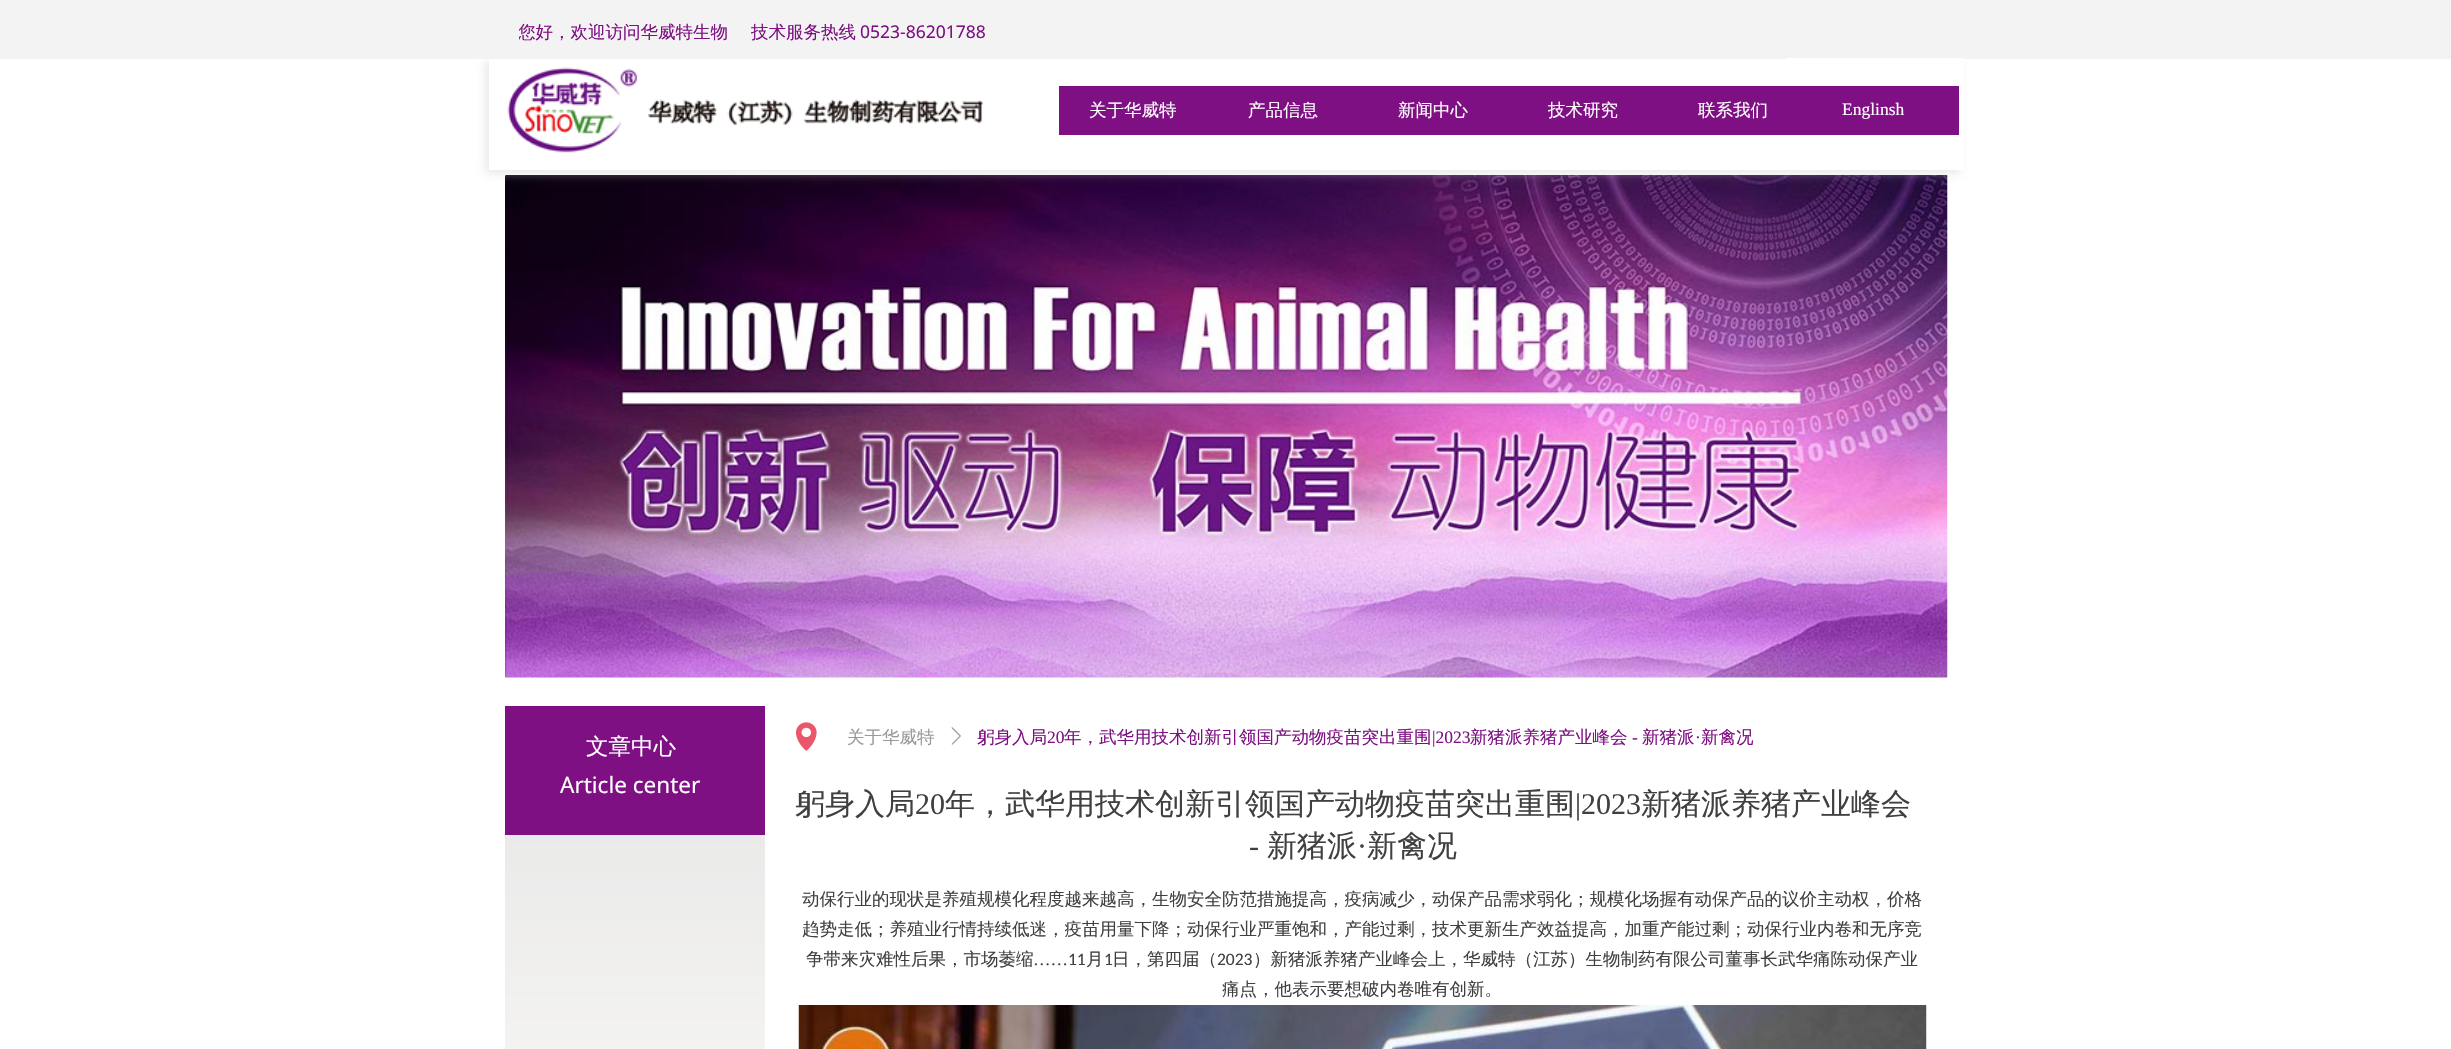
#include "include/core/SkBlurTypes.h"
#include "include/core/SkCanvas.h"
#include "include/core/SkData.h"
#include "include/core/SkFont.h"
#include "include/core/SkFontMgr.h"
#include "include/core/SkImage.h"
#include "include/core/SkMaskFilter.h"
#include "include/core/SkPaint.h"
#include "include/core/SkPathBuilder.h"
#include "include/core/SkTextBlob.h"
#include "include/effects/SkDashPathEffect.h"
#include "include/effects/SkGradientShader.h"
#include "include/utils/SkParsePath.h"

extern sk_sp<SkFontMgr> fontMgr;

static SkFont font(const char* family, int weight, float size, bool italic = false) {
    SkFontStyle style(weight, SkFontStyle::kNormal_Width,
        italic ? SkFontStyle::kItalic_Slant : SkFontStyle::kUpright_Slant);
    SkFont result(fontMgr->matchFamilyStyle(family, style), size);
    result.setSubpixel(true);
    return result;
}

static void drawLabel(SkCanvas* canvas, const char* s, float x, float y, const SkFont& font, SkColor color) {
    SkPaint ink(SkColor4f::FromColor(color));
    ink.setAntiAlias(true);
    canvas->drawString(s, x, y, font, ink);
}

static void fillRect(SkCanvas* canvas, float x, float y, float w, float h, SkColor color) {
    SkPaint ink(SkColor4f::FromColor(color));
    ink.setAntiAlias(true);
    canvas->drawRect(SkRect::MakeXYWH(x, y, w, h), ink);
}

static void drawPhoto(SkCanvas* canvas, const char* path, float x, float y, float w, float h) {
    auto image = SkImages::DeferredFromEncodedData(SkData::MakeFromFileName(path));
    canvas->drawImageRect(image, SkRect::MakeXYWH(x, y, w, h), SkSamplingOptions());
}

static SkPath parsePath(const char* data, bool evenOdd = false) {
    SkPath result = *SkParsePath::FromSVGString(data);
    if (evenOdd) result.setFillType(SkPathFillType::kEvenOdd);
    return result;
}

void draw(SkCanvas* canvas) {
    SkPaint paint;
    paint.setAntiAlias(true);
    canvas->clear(0xFFFFFFFF);
    drawPhoto(canvas, "assets/img2.png", 505, 175, 1443, 503);
    canvas->save();
    canvas->clipPath(parsePath("M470 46H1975V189H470ZM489 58H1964V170H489Z", true), true);
    paint.setColor(0x70CCCCCC);
    paint.setMaskFilter(SkMaskFilter::MakeBlur(kNormal_SkBlurStyle, 4.5f));
    canvas->drawRect(SkRect::MakeXYWH(485, 61, 1475, 113), paint);
    paint.setMaskFilter(nullptr);
    canvas->restore();
    fillRect(canvas, 0, 0, 2451, 59, 0xFFF3F3F3);
    canvas->save();
    canvas->clipRect(SkRect::MakeXYWH(519, 18, 622, 33));
    SkFont font1 = font("WenQuanYi Zen Hei", 500, 17.5f);
    drawLabel(canvas, "您好，欢迎访问华威特生物", 518, 38, font1, 0xFF7E1083);
    canvas->restore();
    drawLabel(canvas, "技术服务热线", 751, 38, font1, 0xFF7E1083);
    SkFont font2 = font("Noto Sans", 400, 17.5f);
    drawLabel(canvas, "0523-86201788", 860, 38, font2, 0xFF7E1083);
    fillRect(canvas, 1786, 58, 178, 1, 0xFFFFFFFF);
    drawPhoto(canvas, "assets/img1.png", 507, 67, 477, 86);
    fillRect(canvas, 1059, 86, 900, 49, 0xFF7F1084);
    drawLabel(canvas, "关于华威特", 1089, 116, font1, 0xFFFFFFFF);
    drawLabel(canvas, "产品信息", 1248, 116, font1, 0xFFFFFFFF);
    drawLabel(canvas, "新闻中心", 1398, 116, font1, 0xFFFFFFFF);
    drawLabel(canvas, "技术研究", 1548, 116, font1, 0xFFFFFFFF);
    drawLabel(canvas, "联系我们", 1698, 116, font1, 0xFFFFFFFF);
    SkFont font3 = font("Liberation Serif", 400, 17.5f);
    drawLabel(canvas, "Englinsh", 1842, 115, font3, 0xFFFFFFFF);
    {
        const SkColor colors[] = {0xFFE5E5E5, 0xFFFBFAF8};
        const float stops[] = {0, 1};
        const SkPoint ends[] = {{505, 706}, {505, 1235}};
        paint.setShader(SkGradientShader::MakeLinear(ends, colors, stops, 2, SkTileMode::kClamp));
        paint.setAlpha(255);
    }
    canvas->drawRect(SkRect::MakeXYWH(505, 835, 260, 214), paint);
    fillRect(canvas, 505, 706, 260, 129, 0xFF7E1083);
    SkFont font4 = font("WenQuanYi Zen Hei", 500, 22.5f);
    drawLabel(canvas, "文章中心", 586, 754, font4, 0xFFFFFFFF);
    SkFont font5 = font("Noto Sans", 400, 22.5f);
    drawLabel(canvas, "Article center", 560, 793, font5, 0xFFFFFFFF);
    drawPhoto(canvas, "assets/img3.png", 796, 722, 21, 29);
    drawLabel(canvas, "关于华威特", 847, 743, font1, 0xFF999999);
    drawPhoto(canvas, "assets/img4.png", 951, 727, 10, 18);
    drawLabel(canvas, "躬身入局", 977, 743, font1, 0xFF7E1083);
    drawLabel(canvas, "20", 1047, 743, font3, 0xFF7E1083);
    drawLabel(canvas, "年，武华用技术创新引领国产动物疫苗突出重围", 1064, 743, font1, 0xFF7E1083);
    drawLabel(canvas, "|2023", 1432, 743, font3, 0xFF7E1083);
    drawLabel(canvas, "新猪派养猪产业峰会", 1470, 743, font1, 0xFF7E1083);
    drawLabel(canvas, "-", 1632, 743, font3, 0xFF7E1083);
    drawLabel(canvas, "新猪派", 1642, 743, font1, 0xFF7E1083);
    drawLabel(canvas, "·", 1695, 743, font3, 0xFF7E1083);
    drawLabel(canvas, "新禽况", 1701, 743, font1, 0xFF7E1083);
    SkFont font6 = font("WenQuanYi Zen Hei", 500, 30);
    drawLabel(canvas, "躬身入局", 795, 814, font6, 0xFF404040);
    SkFont font7 = font("Liberation Serif", 400, 30);
    drawLabel(canvas, "20", 915, 814, font7, 0xFF404040);
    drawLabel(canvas, "年，武华用技术创新引领国产动物疫苗突出重围", 945, 814, font6, 0xFF404040);
    drawLabel(canvas, "|2023", 1575, 814, font7, 0xFF404040);
    drawLabel(canvas, "新猪派养猪产业峰会", 1641, 814, font6, 0xFF404040);
    drawLabel(canvas, "新猪派", 1267, 856, font6, 0xFF404040);
    drawLabel(canvas, "·", 1357, 856, font7, 0xFF404040);
    drawLabel(canvas, "新禽况", 1367, 856, font6, 0xFF404040);
    drawLabel(canvas, "-", 1249, 856, font7, 0xFF404040);
    drawLabel(canvas, "动保行业的现状是养殖规模化程度越来越高，生物安全防范措施提高，疫病减少，动保产品需求弱化；规模化场握有动保产品的议价主动权，价格", 802, 905, font1, 0xFF404040);
    drawLabel(canvas, "趋势走低；养殖业行情持续低迷，疫苗用量下降；动保行业严重饱和，产能过剩，技术更新生产效益提高，加重产能过剩；动保行业内卷和无序竞", 802, 935, font1, 0xFF404040);
    drawLabel(canvas, "争带来灾难性后果，市场萎缩", 806, 965, font1, 0xFF404040);
    drawLabel(canvas, "……", 1033, 965, font3, 0xFF404040);
    SkFont font8 = font("Carlito", 400, 17.5f);
    drawLabel(canvas, "11", 1068, 965, font8, 0xFF404040);
    drawLabel(canvas, "月", 1086, 965, font1, 0xFF404040);
    drawLabel(canvas, "1", 1104, 965, font8, 0xFF404040);
    drawLabel(canvas, "日，第四届（", 1112, 965, font1, 0xFF404040);
    drawLabel(canvas, "2023", 1217, 965, font8, 0xFF404040);
    drawLabel(canvas, "）新猪派养猪产业峰会上，华威特（江苏）生物制药有限公司董事长武华痛陈动保产业", 1253, 965, font1, 0xFF404040);
    drawLabel(canvas, "痛点，他表示要想破内卷唯有创新。", 1222, 995, font1, 0xFF404040);
    drawPhoto(canvas, "assets/img5.png", 798, 1005, 1129, 44);
}
